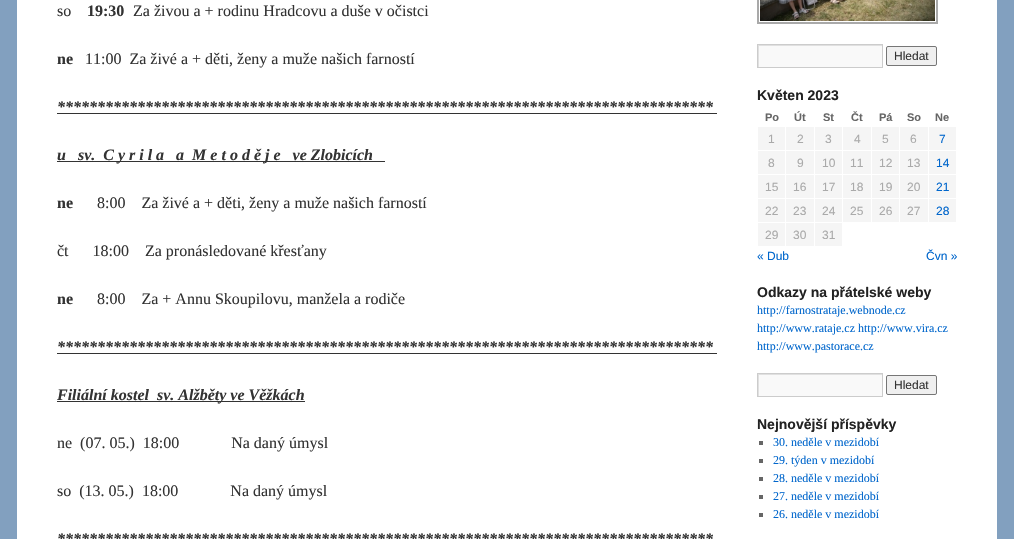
#include "include/core/SkBlurTypes.h"
#include "include/core/SkCanvas.h"
#include "include/core/SkData.h"
#include "include/core/SkFont.h"
#include "include/core/SkFontMgr.h"
#include "include/core/SkImage.h"
#include "include/core/SkMaskFilter.h"
#include "include/core/SkPaint.h"
#include "include/core/SkPathBuilder.h"
#include "include/core/SkTextBlob.h"
#include "include/effects/SkDashPathEffect.h"
#include "include/effects/SkGradientShader.h"
#include "include/utils/SkParsePath.h"

extern sk_sp<SkFontMgr> fontMgr;

static SkFont font(const char* family, int weight, float size, bool italic = false) {
    SkFontStyle style(weight, SkFontStyle::kNormal_Width,
        italic ? SkFontStyle::kItalic_Slant : SkFontStyle::kUpright_Slant);
    SkFont result(fontMgr->matchFamilyStyle(family, style), size);
    result.setSubpixel(true);
    return result;
}

static void drawLabel(SkCanvas* canvas, const char* s, float x, float y, const SkFont& font, SkColor color) {
    SkPaint ink(SkColor4f::FromColor(color));
    ink.setAntiAlias(true);
    canvas->drawString(s, x, y, font, ink);
}

static void fillRect(SkCanvas* canvas, float x, float y, float w, float h, SkColor color) {
    SkPaint ink(SkColor4f::FromColor(color));
    ink.setAntiAlias(true);
    canvas->drawRect(SkRect::MakeXYWH(x, y, w, h), ink);
}

static void drawPhoto(SkCanvas* canvas, const char* path, float x, float y, float w, float h) {
    auto image = SkImages::DeferredFromEncodedData(SkData::MakeFromFileName(path));
    canvas->drawImageRect(image, SkRect::MakeXYWH(x, y, w, h), SkSamplingOptions());
}

static SkPath parsePath(const char* data, bool evenOdd = false) {
    SkPath result = *SkParsePath::FromSVGString(data);
    if (evenOdd) result.setFillType(SkPathFillType::kEvenOdd);
    return result;
}

void draw(SkCanvas* canvas) {
    SkPaint paint;
    paint.setAntiAlias(true);
    canvas->clear(0xFF82A0BF);
    fillRect(canvas, 17, 0, 980, 539, 0xFFFFFFFF);
    SkFont font1 = font("Liberation Serif", 400, 16);
    drawLabel(canvas, "so", 57, 16, font1, 0xFF333333);
    SkFont font2 = font("Liberation Serif", 700, 16);
    drawLabel(canvas, "19:30", 87, 16, font2, 0xFF333333);
    drawLabel(canvas, "Za živou a + rodinu Hradcovu a duše v očistci", 133, 16, font1, 0xFF333333);
    drawLabel(canvas, "ne", 57, 64, font2, 0xFF333333);
    drawLabel(canvas, "11:00  Za živé a + děti, ženy a muže našich farností", 85, 64, font1, 0xFF333333);
    SkFont font3 = font("Liberation Serif", 700, 16, true);
    drawLabel(canvas, "**********************************************************************************", 57, 112, font3, 0xFF333333);
    fillRect(canvas, 57, 113, 660, 1, 0xFF333333);
    fillRect(canvas, 57, 161, 328, 1, 0xFF333333);
    drawLabel(canvas, "u   sv.  C y r i l a   a  M e t o d ě j e   ve Zlobicích", 57, 160, font3, 0xFF333333);
    drawLabel(canvas, "ne", 57, 208, font2, 0xFF333333);
    drawLabel(canvas, "8:00    Za živé a + děti, ženy a muže našich farností", 97, 208, font1, 0xFF333333);
    drawLabel(canvas, "čt      18:00    Za pronásledované křesťany", 57, 256, font1, 0xFF333333);
    drawLabel(canvas, "ne", 57, 304, font2, 0xFF333333);
    drawLabel(canvas, "8:00    Za + Annu Skoupilovu, manžela a rodiče", 97, 304, font1, 0xFF333333);
    drawLabel(canvas, "**********************************************************************************", 57, 352, font3, 0xFF333333);
    fillRect(canvas, 57, 353, 660, 1, 0xFF333333);
    fillRect(canvas, 57, 401, 248, 1, 0xFF333333);
    drawLabel(canvas, "Filiální kostel  sv. Alžběty ve Věžkách", 57, 400, font3, 0xFF333333);
    drawLabel(canvas, "ne  (07. 05.)  18:00             Na daný úmysl", 57, 448, font1, 0xFF333333);
    drawLabel(canvas, "so  (13. 05.)  18:00             Na daný úmysl", 57, 496, font1, 0xFF333333);
    drawLabel(canvas, "**********************************************************************************", 57, 544, font3, 0xFF333333);
    paint.setStroke(true);
    paint.setStrokeWidth(2);
    paint.setColor(0xFFA9A9A9);
    canvas->drawRect(SkRect::MakeXYWH(758, -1, 179, 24), paint);
    drawPhoto(canvas, "assets/img1.png", 760, 0, 175, 21);
    fillRect(canvas, 759, 46, 123, 21, 0xFFF9F9F9);
    canvas->save();
    canvas->clipRect(SkRect::MakeXYWH(758, 45, 124, 22));
    paint.setStroke(false);
    paint.setColor(0xFFE0E0E0);
    canvas->drawPath(parsePath("M659-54H981V166H659ZM759 46H883V68H759Z", true), paint);
    canvas->restore();
    paint.setStroke(true);
    paint.setStrokeWidth(1);
    paint.setColor(0xFFCCCCCC);
    canvas->drawRect(SkRect::MakeXYWH(757.5f, 44.5f, 125, 23), paint);
    paint.setStroke(false);
    paint.setColor(0xFFEFEFEF);
    canvas->drawRoundRect(SkRect::MakeXYWH(886.5f, 46.5f, 50, 19), 1.5f, 1.5f, paint);
    paint.setStroke(true);
    paint.setColor(0xFF767676);
    canvas->drawRoundRect(SkRect::MakeXYWH(886.5f, 46.5f, 50, 19), 1.5f, 1.5f, paint);
    SkFont font4 = font("Liberation Sans", 400, 12);
    drawLabel(canvas, "Hledat", 894, 60, font4, 0xFF333333);
    SkFont font5 = font("Liberation Sans", 700, 14);
    drawLabel(canvas, "Květen 2023", 757, 100, font5, 0xFF222222);
    SkFont font6 = font("Liberation Sans", 700, 11);
    drawLabel(canvas, "Po", 765, 121, font6, 0xFF666666);
    drawLabel(canvas, "Út", 794, 121, font6, 0xFF666666);
    drawLabel(canvas, "St", 823, 121, font6, 0xFF666666);
    drawLabel(canvas, "Čt", 851, 121, font6, 0xFF666666);
    drawLabel(canvas, "Pá", 879, 121, font6, 0xFF666666);
    drawLabel(canvas, "So", 907, 121, font6, 0xFF666666);
    drawLabel(canvas, "Ne", 935, 121, font6, 0xFF666666);
    fillRect(canvas, 758, 127, 27, 23, 0xFFF5F5F5);
    drawLabel(canvas, "1", 768, 143, font4, 0xFFAAAAAA);
    fillRect(canvas, 786, 127, 28, 23, 0xFFF5F5F5);
    drawLabel(canvas, "2", 797, 143, font4, 0xFFAAAAAA);
    fillRect(canvas, 815, 127, 27, 23, 0xFFF5F5F5);
    drawLabel(canvas, "3", 825, 143, font4, 0xFFAAAAAA);
    fillRect(canvas, 843, 127, 28, 23, 0xFFF5F5F5);
    drawLabel(canvas, "4", 854, 143, font4, 0xFFAAAAAA);
    fillRect(canvas, 872, 127, 27, 23, 0xFFF5F5F5);
    drawLabel(canvas, "5", 882, 143, font4, 0xFFAAAAAA);
    fillRect(canvas, 900, 127, 28, 23, 0xFFF5F5F5);
    drawLabel(canvas, "6", 910, 143, font4, 0xFFAAAAAA);
    fillRect(canvas, 929, 127, 27, 23, 0xFFF5F5F5);
    drawLabel(canvas, "7", 939, 143, font4, 0xFF0066CC);
    fillRect(canvas, 758, 151, 27, 23, 0xFFF5F5F5);
    drawLabel(canvas, "8", 768, 167, font4, 0xFFAAAAAA);
    fillRect(canvas, 786, 151, 28, 23, 0xFFF5F5F5);
    drawLabel(canvas, "9", 797, 167, font4, 0xFFAAAAAA);
    fillRect(canvas, 815, 151, 27, 23, 0xFFF5F5F5);
    drawLabel(canvas, "10", 822, 167, font4, 0xFFAAAAAA);
    fillRect(canvas, 843, 151, 28, 23, 0xFFF5F5F5);
    drawLabel(canvas, "11", 850, 167, font4, 0xFFAAAAAA);
    fillRect(canvas, 872, 151, 27, 23, 0xFFF5F5F5);
    drawLabel(canvas, "12", 879, 167, font4, 0xFFAAAAAA);
    fillRect(canvas, 900, 151, 28, 23, 0xFFF5F5F5);
    drawLabel(canvas, "13", 907, 167, font4, 0xFFAAAAAA);
    fillRect(canvas, 929, 151, 27, 23, 0xFFF5F5F5);
    drawLabel(canvas, "14", 936, 167, font4, 0xFF0066CC);
    fillRect(canvas, 758, 175, 27, 23, 0xFFF5F5F5);
    drawLabel(canvas, "15", 765, 191, font4, 0xFFAAAAAA);
    fillRect(canvas, 786, 175, 28, 23, 0xFFF5F5F5);
    drawLabel(canvas, "16", 793, 191, font4, 0xFFAAAAAA);
    fillRect(canvas, 815, 175, 27, 23, 0xFFF5F5F5);
    drawLabel(canvas, "17", 822, 191, font4, 0xFFAAAAAA);
    fillRect(canvas, 843, 175, 28, 23, 0xFFF5F5F5);
    drawLabel(canvas, "18", 850, 191, font4, 0xFFAAAAAA);
    fillRect(canvas, 872, 175, 27, 23, 0xFFF5F5F5);
    drawLabel(canvas, "19", 879, 191, font4, 0xFFAAAAAA);
    fillRect(canvas, 900, 175, 28, 23, 0xFFF5F5F5);
    drawLabel(canvas, "20", 907, 191, font4, 0xFFAAAAAA);
    fillRect(canvas, 929, 175, 27, 23, 0xFFF5F5F5);
    drawLabel(canvas, "21", 936, 191, font4, 0xFF0066CC);
    fillRect(canvas, 758, 199, 27, 23, 0xFFF5F5F5);
    drawLabel(canvas, "22", 765, 215, font4, 0xFFAAAAAA);
    fillRect(canvas, 786, 199, 28, 23, 0xFFF5F5F5);
    drawLabel(canvas, "23", 793, 215, font4, 0xFFAAAAAA);
    fillRect(canvas, 815, 199, 27, 23, 0xFFF5F5F5);
    drawLabel(canvas, "24", 822, 215, font4, 0xFFAAAAAA);
    fillRect(canvas, 843, 199, 28, 23, 0xFFF5F5F5);
    drawLabel(canvas, "25", 850, 215, font4, 0xFFAAAAAA);
    fillRect(canvas, 872, 199, 27, 23, 0xFFF5F5F5);
    drawLabel(canvas, "26", 879, 215, font4, 0xFFAAAAAA);
    fillRect(canvas, 900, 199, 28, 23, 0xFFF5F5F5);
    drawLabel(canvas, "27", 907, 215, font4, 0xFFAAAAAA);
    fillRect(canvas, 929, 199, 27, 23, 0xFFF5F5F5);
    drawLabel(canvas, "28", 936, 215, font4, 0xFF0066CC);
    fillRect(canvas, 758, 223, 27, 23, 0xFFF5F5F5);
    drawLabel(canvas, "29", 765, 239, font4, 0xFFAAAAAA);
    fillRect(canvas, 786, 223, 28, 23, 0xFFF5F5F5);
    drawLabel(canvas, "30", 793, 239, font4, 0xFFAAAAAA);
    fillRect(canvas, 815, 223, 27, 23, 0xFFF5F5F5);
    drawLabel(canvas, "31", 822, 239, font4, 0xFFAAAAAA);
    drawLabel(canvas, "« Dub", 757, 260, font4, 0xFF0066CC);
    drawLabel(canvas, "Čvn »", 926, 260, font4, 0xFF0066CC);
    drawLabel(canvas, "Odkazy na přátelské weby", 757, 297, font5, 0xFF222222);
    SkFont font7 = font("Liberation Serif", 400, 12);
    drawLabel(canvas, "http://farnostrataje.webnode.cz", 757, 314, font7, 0xFF0066CC);
    drawLabel(canvas, "http://www.rataje.cz http://www.vira.cz", 757, 332, font7, 0xFF0066CC);
    drawLabel(canvas, "http://www.pastorace.cz", 757, 350, font7, 0xFF0066CC);
    fillRect(canvas, 759, 375, 123, 21, 0xFFF9F9F9);
    canvas->save();
    canvas->clipRect(SkRect::MakeXYWH(758, 374, 124, 22));
    paint.setStroke(false);
    paint.setColor(0xFFE0E0E0);
    canvas->drawPath(parsePath("M659 275H981V495H659ZM759 375H883V397H759Z", true), paint);
    canvas->restore();
    paint.setStroke(true);
    paint.setColor(0xFFCCCCCC);
    canvas->drawRect(SkRect::MakeXYWH(757.5f, 373.5f, 125, 23), paint);
    paint.setStroke(false);
    paint.setColor(0xFFEFEFEF);
    canvas->drawRoundRect(SkRect::MakeXYWH(886.5f, 375.5f, 50, 19), 1.5f, 1.5f, paint);
    paint.setStroke(true);
    paint.setColor(0xFF767676);
    canvas->drawRoundRect(SkRect::MakeXYWH(886.5f, 375.5f, 50, 19), 1.5f, 1.5f, paint);
    drawLabel(canvas, "Hledat", 894, 389, font4, 0xFF333333);
    drawLabel(canvas, "Nejnovější příspěvky", 757, 429, font5, 0xFF222222);
    fillRect(canvas, 759, 441, 4, 4, 0xFF666666);
    drawLabel(canvas, "30. neděle v mezidobí", 773, 446, font7, 0xFF0066CC);
    fillRect(canvas, 759, 459, 4, 4, 0xFF666666);
    drawLabel(canvas, "29. týden v mezidobí", 773, 464, font7, 0xFF0066CC);
    fillRect(canvas, 759, 477, 4, 4, 0xFF666666);
    drawLabel(canvas, "28. neděle v mezidobí", 773, 482, font7, 0xFF0066CC);
    fillRect(canvas, 759, 495, 4, 4, 0xFF666666);
    drawLabel(canvas, "27. neděle v mezidobí", 773, 500, font7, 0xFF0066CC);
    fillRect(canvas, 759, 513, 4, 4, 0xFF666666);
    drawLabel(canvas, "26. neděle v mezidobí", 773, 518, font7, 0xFF0066CC);
}
